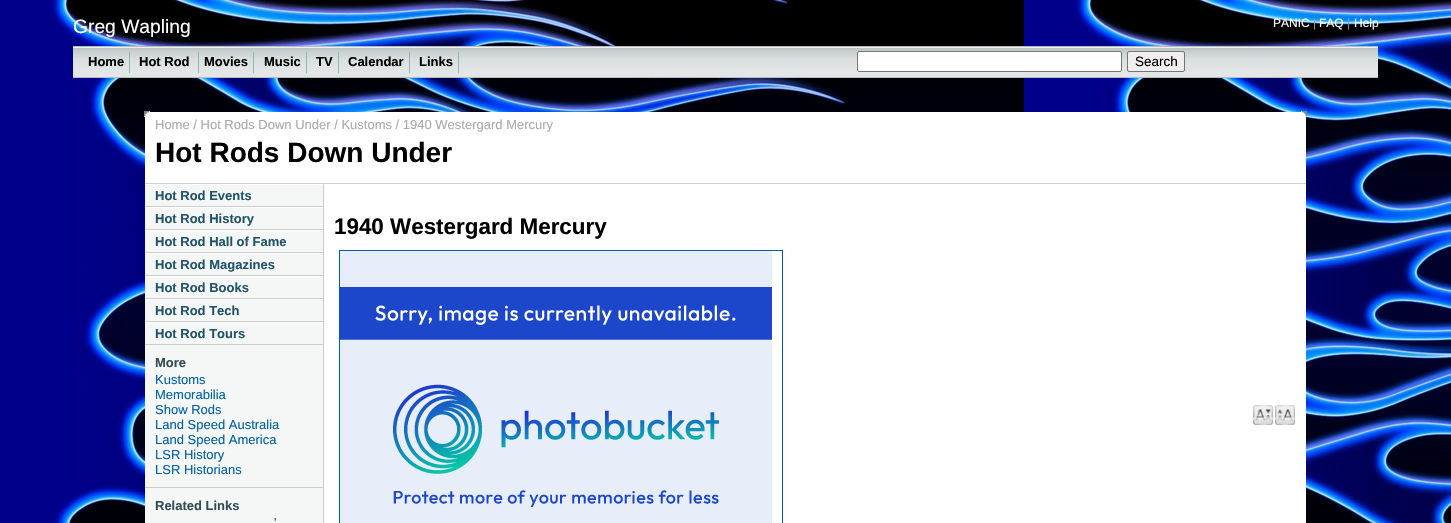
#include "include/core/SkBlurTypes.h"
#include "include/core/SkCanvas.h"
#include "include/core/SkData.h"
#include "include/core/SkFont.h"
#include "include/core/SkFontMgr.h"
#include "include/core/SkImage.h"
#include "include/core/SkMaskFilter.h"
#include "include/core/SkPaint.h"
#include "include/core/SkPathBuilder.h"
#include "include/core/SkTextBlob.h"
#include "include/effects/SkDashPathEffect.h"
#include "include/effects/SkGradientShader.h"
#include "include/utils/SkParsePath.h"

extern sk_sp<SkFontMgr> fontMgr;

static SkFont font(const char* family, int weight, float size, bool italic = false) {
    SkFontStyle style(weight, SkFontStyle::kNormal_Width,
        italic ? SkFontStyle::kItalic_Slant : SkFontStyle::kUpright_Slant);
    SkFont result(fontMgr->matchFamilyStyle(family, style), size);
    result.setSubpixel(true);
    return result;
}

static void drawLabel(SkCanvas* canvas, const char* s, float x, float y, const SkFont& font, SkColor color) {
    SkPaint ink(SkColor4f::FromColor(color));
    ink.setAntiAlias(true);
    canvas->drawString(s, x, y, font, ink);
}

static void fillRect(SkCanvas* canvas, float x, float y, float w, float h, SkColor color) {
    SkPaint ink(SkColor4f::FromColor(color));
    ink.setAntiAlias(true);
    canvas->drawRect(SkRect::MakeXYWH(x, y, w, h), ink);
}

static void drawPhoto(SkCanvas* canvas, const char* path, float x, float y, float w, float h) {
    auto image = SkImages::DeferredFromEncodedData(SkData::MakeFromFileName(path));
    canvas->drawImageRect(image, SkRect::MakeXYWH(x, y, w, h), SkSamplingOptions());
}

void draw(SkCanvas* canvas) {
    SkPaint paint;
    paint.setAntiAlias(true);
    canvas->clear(0xFFFFFFFF);
    drawPhoto(canvas, "assets/img1.png", 0, 0, 1451, 523);
    SkFont font1 = font("Liberation Sans", 400, 19.25f);
    drawLabel(canvas, "Greg Wapling", 73, 33, font1, 0xFFFFFFFF);
    SkFont font2 = font("Liberation Sans", 400, 12);
    drawLabel(canvas, "PANIC", 1273, 27, font2, 0xFFFFFFFF);
    drawLabel(canvas, "|", 1313, 27, font2, 0xFF919999);
    drawLabel(canvas, "FAQ", 1319, 27, font2, 0xFFFFFFFF);
    drawLabel(canvas, "|", 1347, 27, font2, 0xFF919999);
    drawLabel(canvas, "Help", 1354, 27, font2, 0xFFFFFFFF);
    drawPhoto(canvas, "assets/img2.png", 73, 46, 1305, 32);
    SkFont font3 = font("Liberation Sans", 700, 13);
    drawLabel(canvas, "Home", 88, 66, font3, 0xFF000000);
    fillRect(canvas, 129, 52, 1, 21, 0xFF8FB8BC);
    drawLabel(canvas, "Hot Rod", 139, 66, font3, 0xFF000000);
    fillRect(canvas, 198, 52, 1, 21, 0xFF8FB8BC);
    drawLabel(canvas, "Movies", 204, 66, font3, 0xFF000000);
    fillRect(canvas, 253, 52, 1, 21, 0xFF8FB8BC);
    drawLabel(canvas, "Music", 264, 66, font3, 0xFF000000);
    fillRect(canvas, 306, 52, 1, 21, 0xFF8FB8BC);
    drawLabel(canvas, "TV", 316, 66, font3, 0xFF000000);
    fillRect(canvas, 338, 52, 1, 21, 0xFF8FB8BC);
    drawLabel(canvas, "Calendar", 348, 66, font3, 0xFF000000);
    fillRect(canvas, 409, 52, 1, 21, 0xFF8FB8BC);
    drawLabel(canvas, "Links", 419, 66, font3, 0xFF000000);
    fillRect(canvas, 458, 52, 1, 21, 0xFF8FB8BC);
    paint.setColor(0xFFFFFFFF);
    canvas->drawRoundRect(SkRect::MakeXYWH(857.5f, 51.5f, 264, 20), 1.5f, 1.5f, paint);
    paint.setStroke(true);
    paint.setStrokeWidth(1);
    paint.setColor(0xFF767676);
    canvas->drawRoundRect(SkRect::MakeXYWH(857.5f, 51.5f, 264, 20), 1.5f, 1.5f, paint);
    paint.setStroke(false);
    paint.setColor(0xFFEFEFEF);
    canvas->drawRoundRect(SkRect::MakeXYWH(1127.5f, 51.5f, 57, 20), 1.5f, 1.5f, paint);
    paint.setStroke(true);
    paint.setColor(0xFF767676);
    canvas->drawRoundRect(SkRect::MakeXYWH(1127.5f, 51.5f, 57, 20), 1.5f, 1.5f, paint);
    SkFont font4 = font("Liberation Sans", 400, 13.5f);
    drawLabel(canvas, "Search", 1135, 66, font4, 0xFF000000);
    fillRect(canvas, 145, 112, 1161, 411, 0xFFFFFFFF);
    drawPhoto(canvas, "assets/img3.png", 144, 111, 6, 6);
    drawPhoto(canvas, "assets/img4.png", 1301, 111, 6, 6);
    SkFont font5 = font("Liberation Sans", 400, 13);
    drawLabel(canvas, "Home / Hot Rods Down Under / Kustoms / 1940 Westergard Mercury", 155, 129, font5, 0xFFAAAAAA);
    fillRect(canvas, 145, 183, 1161, 1, 0xFFCCD2D2);
    SkFont font6 = font("Liberation Sans", 700, 28);
    drawLabel(canvas, "Hot Rods Down Under", 155, 162, font6, 0xFF000000);
    fillRect(canvas, 145, 185, 178, 338, 0xFFF5F7F7);
    fillRect(canvas, 323, 184, 1, 339, 0xFFCCCCCC);
    fillRect(canvas, 145, 206, 178, 1, 0xFFCCCCCC);
    drawLabel(canvas, "Hot Rod Events", 155, 200, font3, 0xFF21536A);
    fillRect(canvas, 145, 207, 178, 1, 0xFFFFFFFF);
    fillRect(canvas, 145, 229, 178, 1, 0xFFCCCCCC);
    drawLabel(canvas, "Hot Rod History", 155, 223, font3, 0xFF21536A);
    fillRect(canvas, 145, 230, 178, 1, 0xFFFFFFFF);
    fillRect(canvas, 145, 252, 178, 1, 0xFFCCCCCC);
    drawLabel(canvas, "Hot Rod Hall of Fame", 155, 246, font3, 0xFF21536A);
    fillRect(canvas, 145, 253, 178, 1, 0xFFFFFFFF);
    fillRect(canvas, 145, 275, 178, 1, 0xFFCCCCCC);
    drawLabel(canvas, "Hot Rod Magazines", 155, 269, font3, 0xFF21536A);
    fillRect(canvas, 145, 276, 178, 1, 0xFFFFFFFF);
    fillRect(canvas, 145, 298, 178, 1, 0xFFCCCCCC);
    drawLabel(canvas, "Hot Rod Books", 155, 292, font3, 0xFF21536A);
    fillRect(canvas, 145, 299, 178, 1, 0xFFFFFFFF);
    fillRect(canvas, 145, 321, 178, 1, 0xFFCCCCCC);
    drawLabel(canvas, "Hot Rod Tech", 155, 315, font3, 0xFF21536A);
    fillRect(canvas, 145, 322, 178, 1, 0xFFFFFFFF);
    fillRect(canvas, 145, 344, 178, 1, 0xFFCCCCCC);
    drawLabel(canvas, "Hot Rod Tours", 155, 338, font3, 0xFF21536A);
    fillRect(canvas, 145, 487, 178, 1, 0xFFCCCCCC);
    drawLabel(canvas, "More", 155, 367, font3, 0xFF334D55);
    drawLabel(canvas, "Kustoms", 155, 384, font5, 0xFF005FA9);
    drawLabel(canvas, "Memorabilia", 155, 399, font5, 0xFF005FA9);
    drawLabel(canvas, "Show Rods", 155, 414, font5, 0xFF005FA9);
    drawLabel(canvas, "Land Speed Australia", 155, 429, font5, 0xFF005FA9);
    drawLabel(canvas, "Land Speed America", 155, 444, font5, 0xFF005FA9);
    drawLabel(canvas, "LSR History", 155, 459, font5, 0xFF005FA9);
    drawLabel(canvas, "LSR Historians", 155, 474, font5, 0xFF005FA9);
    drawLabel(canvas, "Related Links", 155, 510, font3, 0xFF334D55);
    drawLabel(canvas, "'", 274, 527, font5, 0xFF005FA9);
    SkFont font7 = font("Liberation Sans", 700, 22.4f);
    drawLabel(canvas, "1940 Westergard Mercury", 334, 234, font7, 0xFF000000);
    paint.setColor(0xFF005FA9);
    canvas->drawRect(SkRect::MakeXYWH(339.5f, 250.5f, 443, 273), paint);
    drawPhoto(canvas, "assets/img5.png", 340, 251, 432, 272);
    drawPhoto(canvas, "assets/img6.png", 1253, 405, 21, 21);
    drawPhoto(canvas, "assets/img7.png", 1275, 405, 21, 21);
}
